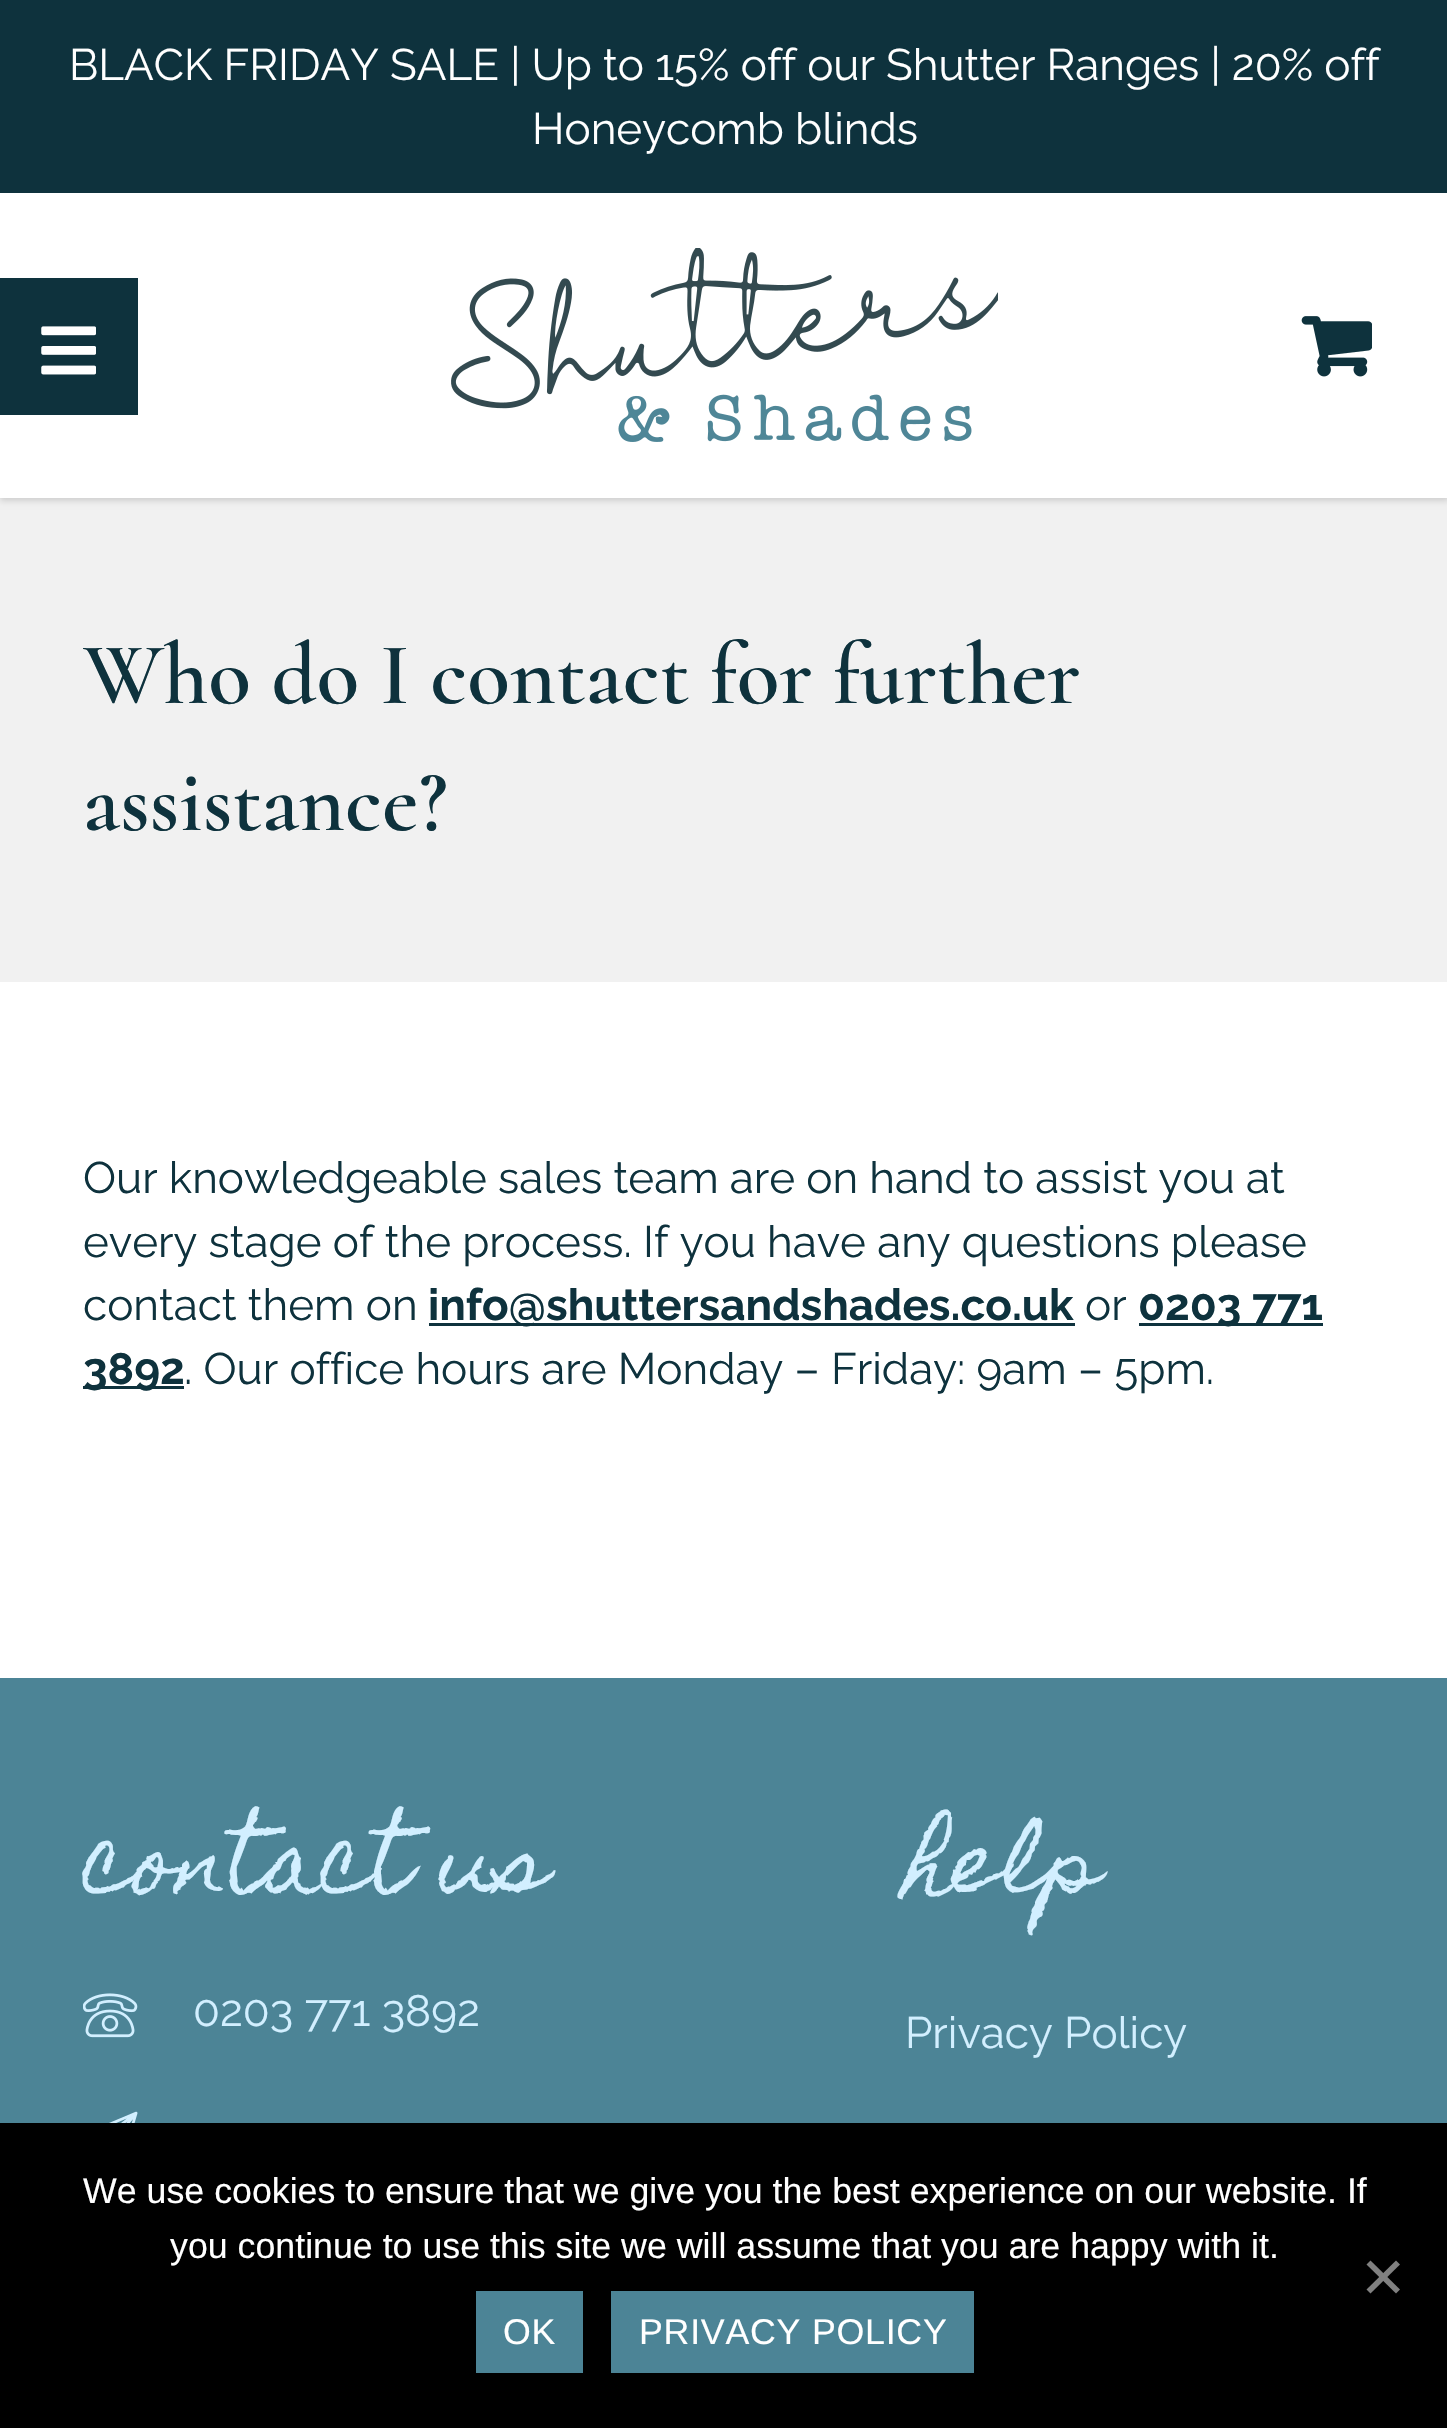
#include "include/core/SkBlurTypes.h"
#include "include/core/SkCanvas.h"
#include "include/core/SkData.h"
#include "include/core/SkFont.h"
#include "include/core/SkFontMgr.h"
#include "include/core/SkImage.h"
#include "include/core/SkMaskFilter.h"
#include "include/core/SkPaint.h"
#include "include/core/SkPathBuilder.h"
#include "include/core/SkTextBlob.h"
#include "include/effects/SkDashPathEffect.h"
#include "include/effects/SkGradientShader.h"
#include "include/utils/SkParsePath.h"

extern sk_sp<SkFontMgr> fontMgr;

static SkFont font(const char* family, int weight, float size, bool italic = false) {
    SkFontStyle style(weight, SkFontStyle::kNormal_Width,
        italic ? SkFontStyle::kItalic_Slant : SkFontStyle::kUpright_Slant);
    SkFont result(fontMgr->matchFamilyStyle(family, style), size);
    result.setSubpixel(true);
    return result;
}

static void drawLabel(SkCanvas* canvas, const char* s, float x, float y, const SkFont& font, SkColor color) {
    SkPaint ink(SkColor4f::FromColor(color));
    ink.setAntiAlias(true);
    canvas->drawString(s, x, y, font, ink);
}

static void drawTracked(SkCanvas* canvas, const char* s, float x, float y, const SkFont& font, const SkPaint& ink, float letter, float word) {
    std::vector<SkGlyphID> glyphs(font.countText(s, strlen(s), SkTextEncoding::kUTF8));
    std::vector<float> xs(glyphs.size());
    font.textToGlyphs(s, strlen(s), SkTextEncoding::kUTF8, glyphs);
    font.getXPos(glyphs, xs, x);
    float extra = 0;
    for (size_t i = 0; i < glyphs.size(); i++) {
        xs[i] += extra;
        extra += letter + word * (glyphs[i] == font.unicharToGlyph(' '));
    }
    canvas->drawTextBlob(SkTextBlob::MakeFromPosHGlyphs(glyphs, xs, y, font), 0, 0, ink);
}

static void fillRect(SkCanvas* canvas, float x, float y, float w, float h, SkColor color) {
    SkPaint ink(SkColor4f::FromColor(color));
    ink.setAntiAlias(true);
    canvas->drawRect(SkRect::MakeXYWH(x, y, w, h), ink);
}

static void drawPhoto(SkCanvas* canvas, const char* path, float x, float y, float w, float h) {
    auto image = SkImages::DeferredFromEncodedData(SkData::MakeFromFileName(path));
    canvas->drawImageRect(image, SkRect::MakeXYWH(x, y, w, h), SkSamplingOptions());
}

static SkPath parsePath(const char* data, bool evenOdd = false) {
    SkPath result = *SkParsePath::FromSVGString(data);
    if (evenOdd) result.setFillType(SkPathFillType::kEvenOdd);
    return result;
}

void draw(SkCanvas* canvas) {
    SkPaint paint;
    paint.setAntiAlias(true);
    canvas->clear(0xFFFFFFFF);
    fillRect(canvas, 0, 498, 1447, 484, 0xFFF1F1F1);
    paint.setColor(0x24000000);
    paint.setMaskFilter(SkMaskFilter::MakeBlur(kNormal_SkBlurStyle, 3));
    canvas->drawRect(SkRect::MakeXYWH(0, 195, 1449, 306), paint);
    paint.setMaskFilter(nullptr);
    fillRect(canvas, 0, 0, 1447, 193, 0xFF0E323D);
    SkFont font1 = font("Raleway", 400, 44);
    drawLabel(canvas, "BLACK FRIDAY SALE | Up to 15% off our Shutter Ranges | 20% off", 69, 80, font1, 0xFFFFFFFF);
    drawLabel(canvas, "Honeycomb blinds", 532, 144, font1, 0xFFFFFFFF);
    fillRect(canvas, 0, 193, 1447, 305, 0xFFFFFFFF);
    fillRect(canvas, 0, 278, 138, 137, 0xFF0E323D);
    drawPhoto(canvas, "assets/img1.png", 41, 326, 55, 49);
    drawPhoto(canvas, "assets/img2.png", 451, 248, 547, 194);
    drawPhoto(canvas, "assets/img3.png", 1301, 316, 71, 61);
    SkFont font2 = font("Cormorant", 600, 88);
    drawLabel(canvas, "Who do I contact for further", 83, 703, font2, 0xFF0E323D);
    drawLabel(canvas, "assistance?", 83, 830, font2, 0xFF0E323D);
    drawLabel(canvas, "Our knowledgeable sales team are on hand to assist you at", 83, 1193, font1, 0xFF0E323D);
    drawLabel(canvas, "every stage of the process. If you have any questions please", 83, 1257, font1, 0xFF0E323D);
    drawLabel(canvas, "contact them on", 83, 1320, font1, 0xFF0E323D);
    fillRect(canvas, 429, 1323, 646, 3, 0xFF0E323D);
    SkFont font3 = font("Raleway", 700, 44);
    drawLabel(canvas, "info@shuttersandshades.co.uk", 428, 1320, font3, 0xFF0E323D);
    drawLabel(canvas, "or", 1085, 1320, font1, 0xFF0E323D);
    fillRect(canvas, 1139, 1323, 184, 3, 0xFF0E323D);
    drawLabel(canvas, "0203 771", 1138, 1320, font3, 0xFF0E323D);
    fillRect(canvas, 83, 1386, 101, 3, 0xFF0E323D);
    drawLabel(canvas, "3892", 83, 1384, font3, 0xFF0E323D);
    drawLabel(canvas, ". Our office hours are Monday – Friday: 9am – 5pm.", 184, 1384, font1, 0xFF0E323D);
    fillRect(canvas, 0, 1678, 1447, 445, 0xFF4C8496);
    SkFont font4 = font("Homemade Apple", 400, 83.5f);
    drawLabel(canvas, "contact us", 83, 1891, font4, 0xFFD2EFFF);
    drawPhoto(canvas, "assets/img4.png", 83, 1993, 55, 45);
    drawLabel(canvas, "0203 771 3892", 193, 2026, font1, 0xFFD2EFFF);
    drawPhoto(canvas, "assets/img5.png", 109, 2111, 29, 12);
    drawLabel(canvas, "help", 905, 1891, font4, 0xFFD2EFFF);
    drawLabel(canvas, "Privacy Policy", 905, 2048, font1, 0xFFD2EFFF);
    fillRect(canvas, 0, 2123, 1447, 305, 0xFF000000);
    SkFont font5 = font("Liberation Sans", 400, 35.75f);
    drawLabel(canvas, "We use cookies to ensure that we give you the best experience on our website. If", 83, 2203, font5, 0xFFFFFFFF);
    drawLabel(canvas, "you continue to use this site we will assume that you are happy with it.", 170, 2258, font5, 0xFFFFFFFF);
    paint.setColor(0xFF808080);
    canvas->drawPath(parsePath("M1396 2260.5L1400 2264.5L1370.5 2293.5L1366.5 2289.5Z"), paint);
    canvas->drawPath(parsePath("M1366.5 2264.5L1370.5 2260.5L1400 2289.5L1396 2293.5Z"), paint);
    fillRect(canvas, 476, 2291, 107, 82, 0xFF4C8496);
    paint.setColor(0xFFFFFFFF);
    drawTracked(canvas, "OK", 503, 2344, font5, paint, 0.75f, 0);
    fillRect(canvas, 611, 2291, 363, 82, 0xFF4C8496);
    drawTracked(canvas, "PRIVACY POLICY", 639, 2344, font5, paint, 0.75f, 0);
}
